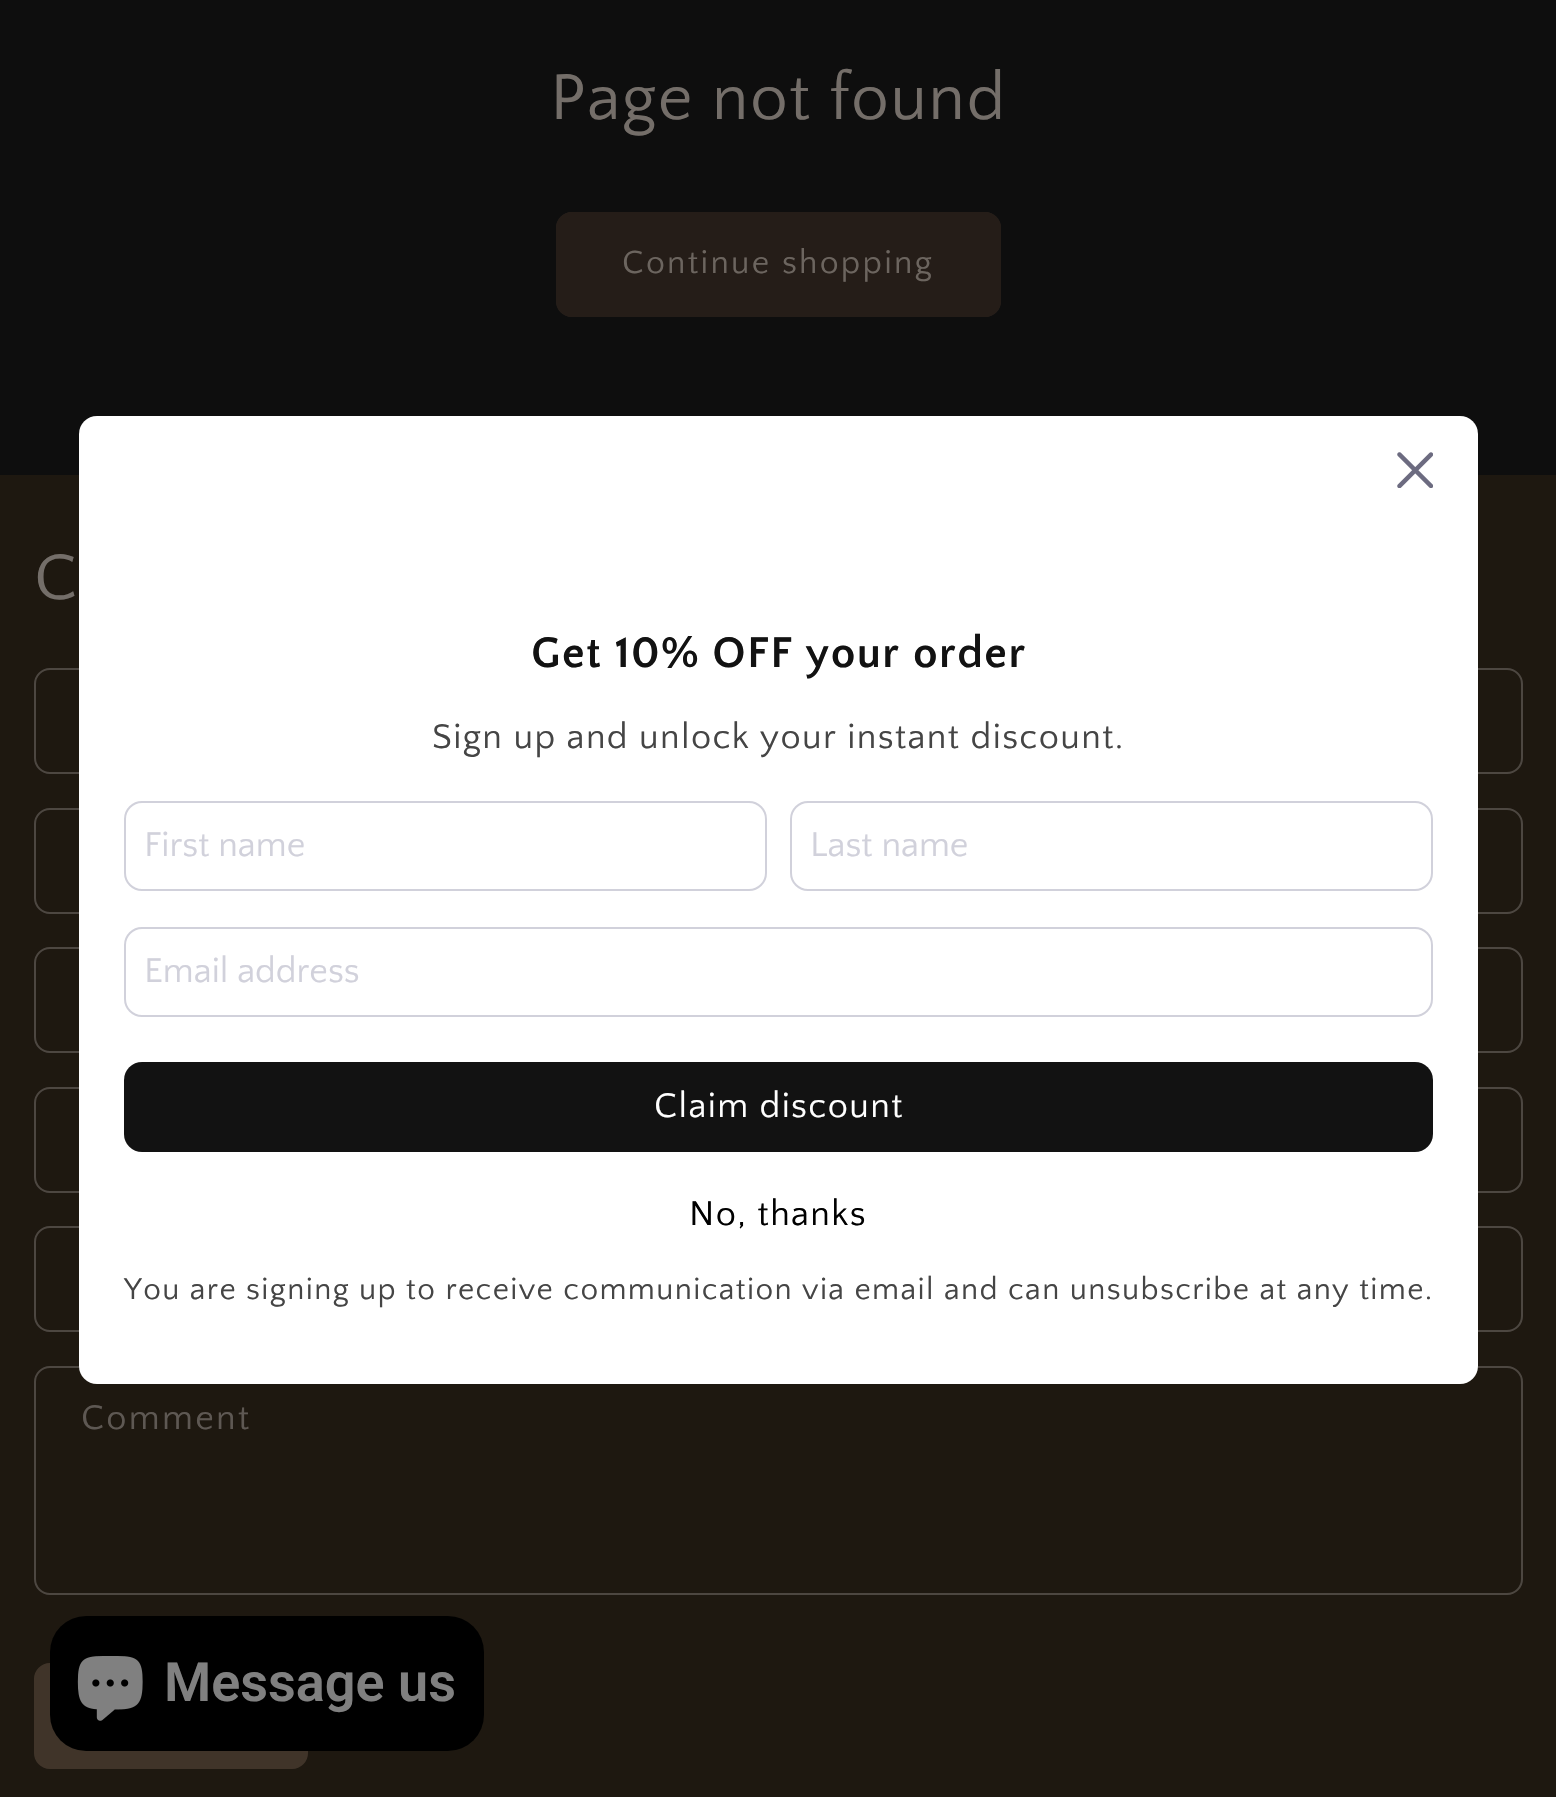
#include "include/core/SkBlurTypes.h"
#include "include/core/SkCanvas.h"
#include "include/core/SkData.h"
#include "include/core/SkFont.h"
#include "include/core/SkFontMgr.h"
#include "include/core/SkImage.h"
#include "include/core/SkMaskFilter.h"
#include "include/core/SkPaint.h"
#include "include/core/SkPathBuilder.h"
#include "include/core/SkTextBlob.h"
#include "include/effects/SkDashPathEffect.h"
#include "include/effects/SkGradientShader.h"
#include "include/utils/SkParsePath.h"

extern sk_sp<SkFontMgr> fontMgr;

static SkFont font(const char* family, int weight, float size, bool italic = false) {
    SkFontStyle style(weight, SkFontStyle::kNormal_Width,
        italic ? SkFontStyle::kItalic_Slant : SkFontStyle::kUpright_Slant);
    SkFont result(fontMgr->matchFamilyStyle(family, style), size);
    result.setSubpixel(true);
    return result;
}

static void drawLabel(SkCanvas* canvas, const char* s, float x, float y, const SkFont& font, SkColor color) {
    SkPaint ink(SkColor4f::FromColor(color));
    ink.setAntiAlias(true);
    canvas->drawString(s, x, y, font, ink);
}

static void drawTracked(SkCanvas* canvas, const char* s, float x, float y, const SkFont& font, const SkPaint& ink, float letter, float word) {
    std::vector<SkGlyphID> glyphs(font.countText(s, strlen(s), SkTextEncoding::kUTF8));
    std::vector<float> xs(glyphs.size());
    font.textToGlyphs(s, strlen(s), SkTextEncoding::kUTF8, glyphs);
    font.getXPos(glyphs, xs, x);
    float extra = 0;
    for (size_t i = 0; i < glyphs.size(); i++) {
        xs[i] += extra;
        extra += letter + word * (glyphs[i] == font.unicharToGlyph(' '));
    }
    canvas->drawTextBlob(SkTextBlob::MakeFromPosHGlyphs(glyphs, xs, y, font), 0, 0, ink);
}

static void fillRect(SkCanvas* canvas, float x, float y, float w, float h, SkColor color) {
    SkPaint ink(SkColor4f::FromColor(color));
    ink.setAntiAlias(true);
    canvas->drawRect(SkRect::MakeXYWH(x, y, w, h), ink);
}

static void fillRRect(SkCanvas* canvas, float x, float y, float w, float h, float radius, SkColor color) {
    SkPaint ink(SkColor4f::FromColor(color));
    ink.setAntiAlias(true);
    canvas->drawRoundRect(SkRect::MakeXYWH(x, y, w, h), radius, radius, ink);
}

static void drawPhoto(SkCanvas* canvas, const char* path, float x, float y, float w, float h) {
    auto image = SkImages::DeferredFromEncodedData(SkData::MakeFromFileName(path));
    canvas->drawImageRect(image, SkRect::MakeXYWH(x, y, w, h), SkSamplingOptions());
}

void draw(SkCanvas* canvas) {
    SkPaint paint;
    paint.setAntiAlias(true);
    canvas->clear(0xFF0E0E0E);
    SkFont font1 = font("Quattrocento Sans", 400, 67.5f);
    paint.setColor(0xFF746E69);
    drawTracked(canvas, "Page not found", 550, 119, font1, paint, 1.35f, 0);
    fillRRect(canvas, 556, 212, 445, 105, 16, 0xFF251D18);
    paint.setStroke(true);
    paint.setStrokeWidth(2);
    paint.setColor(0xFF251D18);
    canvas->drawRoundRect(SkRect::MakeXYWH(557, 213, 443, 103), 15, 15, paint);
    SkFont font2 = font("Quattrocento Sans", 400, 33.75f);
    paint.setStroke(false);
    paint.setColor(0xFF6C655F);
    drawTracked(canvas, "Continue shopping", 622, 273, font2, paint, 2.25f, 0);
    fillRect(canvas, 0, 475, 1556, 1322, 0xFF1E1810);
    paint.setColor(0xFF746E69);
    drawTracked(canvas, "C", 34, 599, font1, paint, 1.35f, 0);
    paint.setStroke(true);
    paint.setColor(0xFF4D4741);
    canvas->drawRoundRect(SkRect::MakeXYWH(35, 669, 1487, 104), 15, 15, paint);
    canvas->drawRoundRect(SkRect::MakeXYWH(35, 809, 1487, 104), 15, 15, paint);
    canvas->drawRoundRect(SkRect::MakeXYWH(35, 948, 1487, 104), 15, 15, paint);
    canvas->drawRoundRect(SkRect::MakeXYWH(35, 1088, 1487, 104), 15, 15, paint);
    canvas->drawRoundRect(SkRect::MakeXYWH(35, 1227, 1487, 104), 15, 15, paint);
    canvas->drawRoundRect(SkRect::MakeXYWH(35, 1367, 1487, 227), 15, 15, paint);
    SkFont font3 = font("Quattrocento Sans", 400, 36);
    paint.setStroke(false);
    paint.setColor(0xFF5E5853);
    drawTracked(canvas, "Comment", 81, 1429, font3, paint, 2.25f, 0);
    paint.setColor(0xFF403429);
    canvas->drawRoundRect(SkRect::MakeXYWH(35, 1664, 272, 104), 15, 15, paint);
    paint.setStroke(true);
    canvas->drawRoundRect(SkRect::MakeXYWH(35, 1664, 272, 104), 15, 15, paint);
    fillRRect(canvas, 79, 416, 1399, 968, 18, 0xFFFFFFFF);
    drawPhoto(canvas, "assets/img1.png", 1397, 452, 36, 36);
    SkFont font4 = font("Quattrocento Sans", 700, 45);
    paint.setStroke(false);
    paint.setColor(0xFF121212);
    drawTracked(canvas, "Get 10% OFF your order", 531, 667, font4, paint, 1.35f, 0);
    paint.setColor(0xFF454545);
    drawTracked(canvas, "Sign up and unlock your instant discount.", 432, 748, font3, paint, 1.35f, 0);
    paint.setStroke(true);
    paint.setColor(0xFFD1D1DB);
    canvas->drawRoundRect(SkRect::MakeXYWH(125, 802, 641, 88), 17, 17, paint);
    drawLabel(canvas, "First name", 144, 856, font3, 0xFFD1D1DB);
    canvas->drawRoundRect(SkRect::MakeXYWH(791, 802, 641, 88), 17, 17, paint);
    drawLabel(canvas, "Last name", 810, 856, font3, 0xFFD1D1DB);
    canvas->drawRoundRect(SkRect::MakeXYWH(125, 928, 1307, 88), 17, 17, paint);
    drawLabel(canvas, "Email address", 144, 982, font3, 0xFFD1D1DB);
    fillRRect(canvas, 124, 1062, 1309, 90, 18, 0xFF121212);
    paint.setStroke(false);
    paint.setColor(0xFFFFFFFF);
    drawTracked(canvas, "Claim discount", 654, 1117, font3, paint, 1.35f, 0);
    paint.setColor(0xFF000000);
    drawTracked(canvas, "No, thanks", 689, 1225, font3, paint, 1.35f, 0);
    SkFont font5 = font("Quattrocento Sans", 400, 31.5f);
    paint.setColor(0xFF454545);
    drawTracked(canvas, "You are signing up to receive communication via email and can unsubscribe at any time.", 124, 1299, font5, paint, 1.35f, 0);
    fillRRect(canvas, 50, 1616, 434, 135, 36, 0xFF000000);
    drawPhoto(canvas, "assets/img2.png", 77, 1656, 66, 65);
    SkFont font6 = font("Roboto", 600, 54);
    drawLabel(canvas, "Message us", 164, 1701, font6, 0xFF808080);
}
